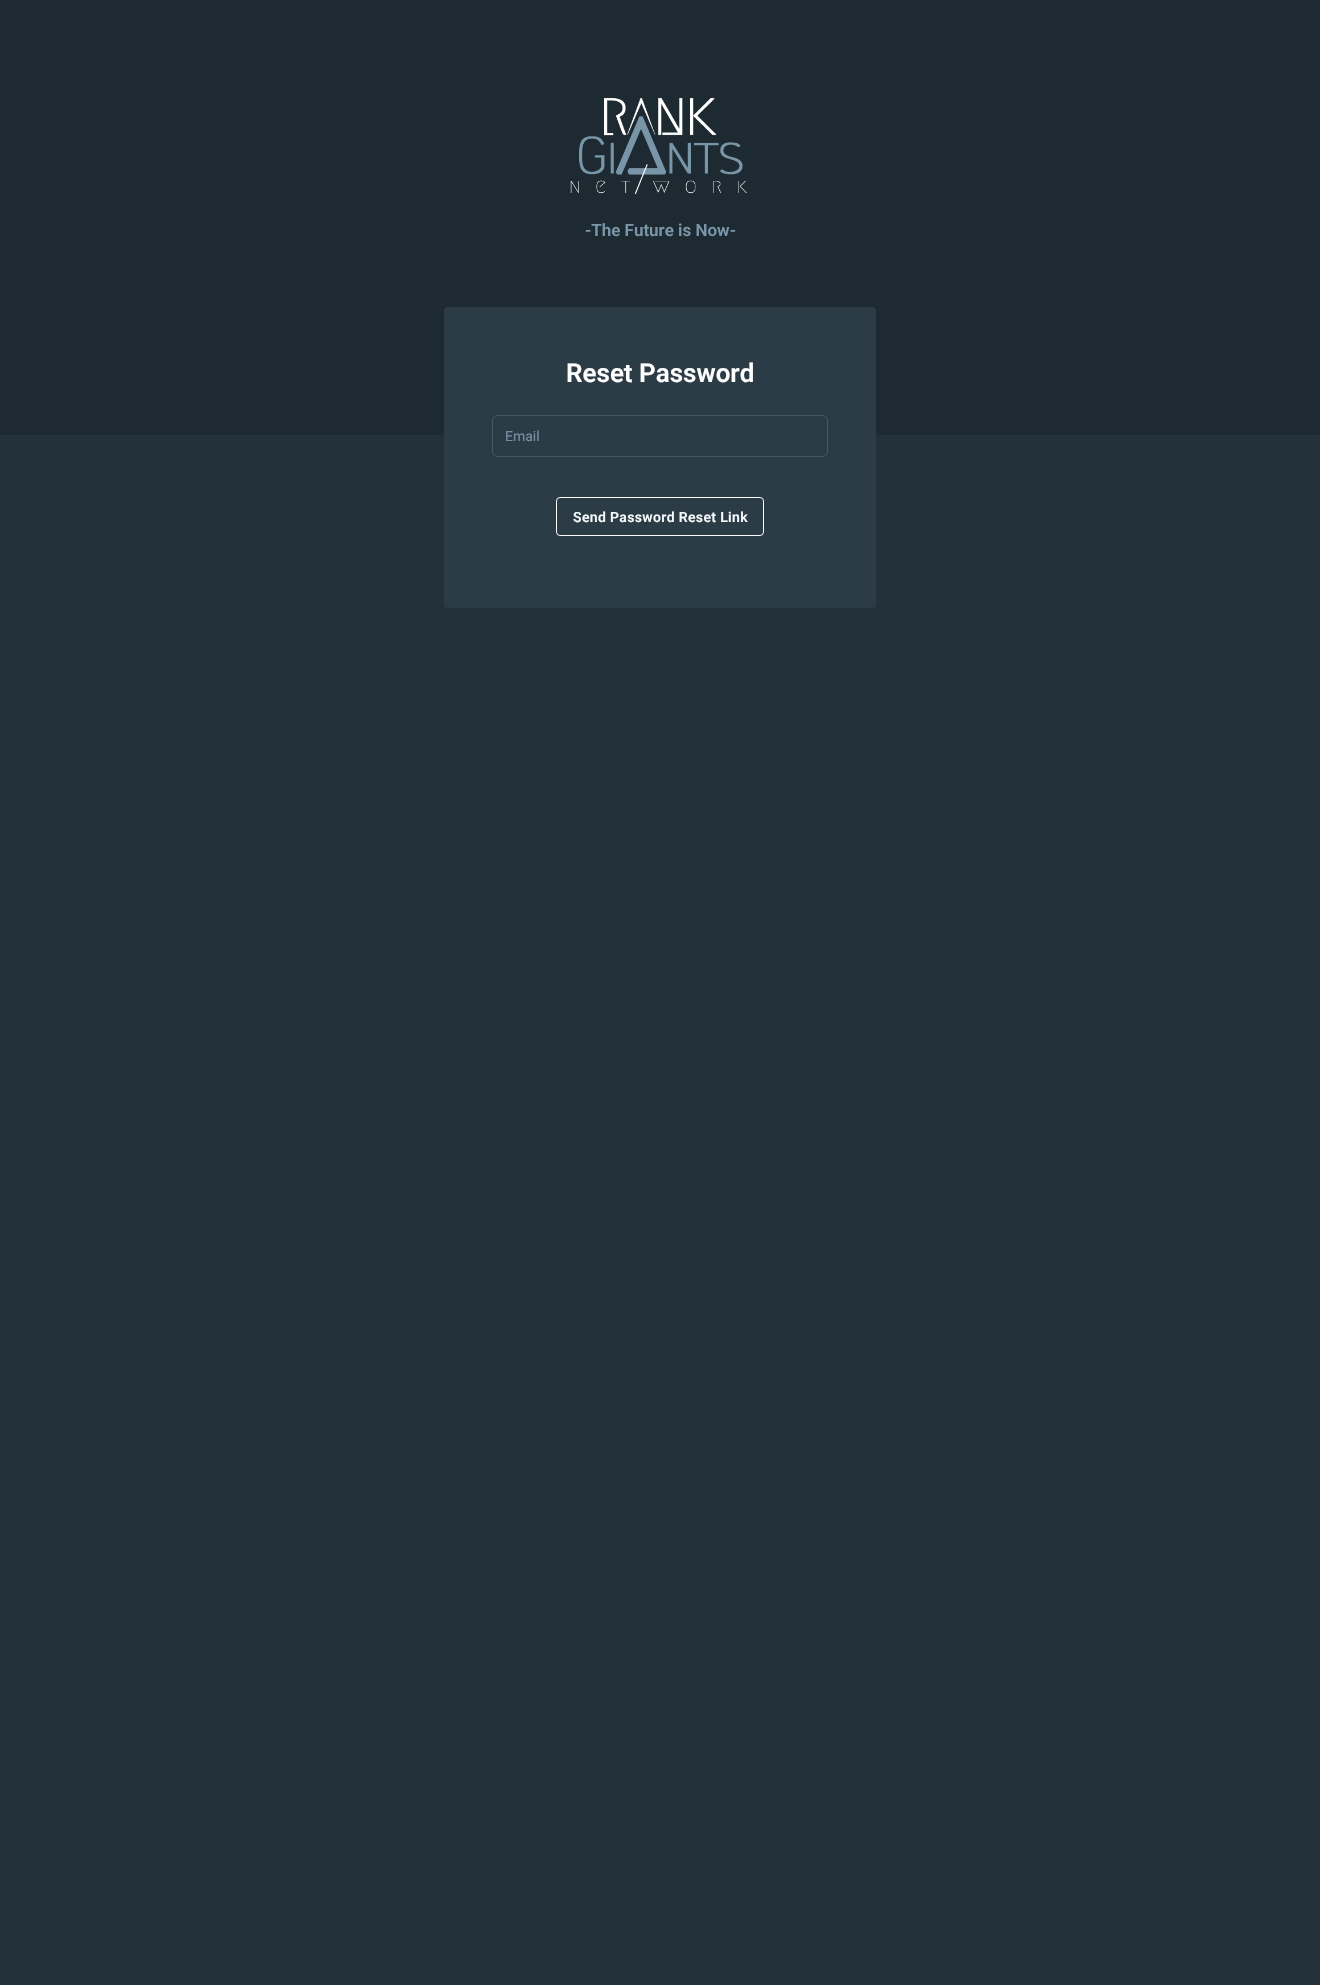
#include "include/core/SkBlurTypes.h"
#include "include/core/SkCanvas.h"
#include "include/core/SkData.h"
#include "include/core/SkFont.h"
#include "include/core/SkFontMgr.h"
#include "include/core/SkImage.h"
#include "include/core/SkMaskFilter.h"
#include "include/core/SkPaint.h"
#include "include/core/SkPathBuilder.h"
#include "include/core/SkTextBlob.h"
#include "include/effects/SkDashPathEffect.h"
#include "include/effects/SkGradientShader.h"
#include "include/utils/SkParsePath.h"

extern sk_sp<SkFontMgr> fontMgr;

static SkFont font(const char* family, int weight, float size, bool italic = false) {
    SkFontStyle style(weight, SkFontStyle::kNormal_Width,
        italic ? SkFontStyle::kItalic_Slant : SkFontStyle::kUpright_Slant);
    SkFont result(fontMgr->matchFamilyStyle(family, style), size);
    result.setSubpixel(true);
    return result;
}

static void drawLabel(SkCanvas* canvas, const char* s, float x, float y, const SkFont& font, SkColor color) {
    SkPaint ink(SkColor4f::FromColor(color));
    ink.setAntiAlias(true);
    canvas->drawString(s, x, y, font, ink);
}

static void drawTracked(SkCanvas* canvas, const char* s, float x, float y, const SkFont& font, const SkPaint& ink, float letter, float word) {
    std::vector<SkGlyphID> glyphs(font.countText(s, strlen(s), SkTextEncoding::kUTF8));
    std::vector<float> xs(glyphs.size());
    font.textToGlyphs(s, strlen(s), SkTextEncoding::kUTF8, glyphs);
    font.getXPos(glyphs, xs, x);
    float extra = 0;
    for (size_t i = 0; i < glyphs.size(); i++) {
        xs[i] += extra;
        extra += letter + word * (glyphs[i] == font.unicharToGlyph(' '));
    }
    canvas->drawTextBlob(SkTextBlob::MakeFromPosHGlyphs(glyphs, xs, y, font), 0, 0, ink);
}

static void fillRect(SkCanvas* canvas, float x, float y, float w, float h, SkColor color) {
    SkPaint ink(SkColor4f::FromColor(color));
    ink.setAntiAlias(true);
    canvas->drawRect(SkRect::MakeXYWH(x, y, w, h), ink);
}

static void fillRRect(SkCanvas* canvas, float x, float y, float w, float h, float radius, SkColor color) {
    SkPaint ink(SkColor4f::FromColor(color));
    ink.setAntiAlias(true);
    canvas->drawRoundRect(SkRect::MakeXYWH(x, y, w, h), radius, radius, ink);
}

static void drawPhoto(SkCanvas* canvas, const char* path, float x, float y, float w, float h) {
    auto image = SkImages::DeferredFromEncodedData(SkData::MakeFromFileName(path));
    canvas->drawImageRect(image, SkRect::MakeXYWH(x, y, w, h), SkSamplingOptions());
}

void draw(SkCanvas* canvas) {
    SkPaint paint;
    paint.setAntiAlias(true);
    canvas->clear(0xFF22313A);
    fillRect(canvas, 0, 0, 1320, 435, 0xFF1E2A31);
    drawPhoto(canvas, "assets/img1.png", 570, 97, 177, 98);
    SkFont font1 = font("Roboto", 600, 17);
    drawLabel(canvas, "-The Future is Now-", 585, 236, font1, 0xFF7A96A9);
    fillRRect(canvas, 444, 307, 432, 301, 4, 0xFF2B3C46);
    SkFont font2 = font("Roboto", 600, 26);
    drawLabel(canvas, "Reset Password", 566, 382, font2, 0xFFFFFFFF);
    paint.setStroke(true);
    paint.setStrokeWidth(1);
    paint.setColor(0xFF415969);
    canvas->drawRoundRect(SkRect::MakeXYWH(492.5f, 415.5f, 335, 41), 5.5f, 5.5f, paint);
    SkFont font3 = font("Roboto", 400, 14);
    drawLabel(canvas, "Email", 505, 441, font3, 0xFF798FA4);
    paint.setColor(0xFFF7FAFC);
    canvas->drawRoundRect(SkRect::MakeXYWH(556.5f, 497.5f, 207, 38), 3.5f, 3.5f, paint);
    SkFont font4 = font("Roboto", 600, 14);
    paint.setStroke(false);
    drawTracked(canvas, "Send Password Reset Link", 573, 522, font4, paint, 0.35f, 0);
}
